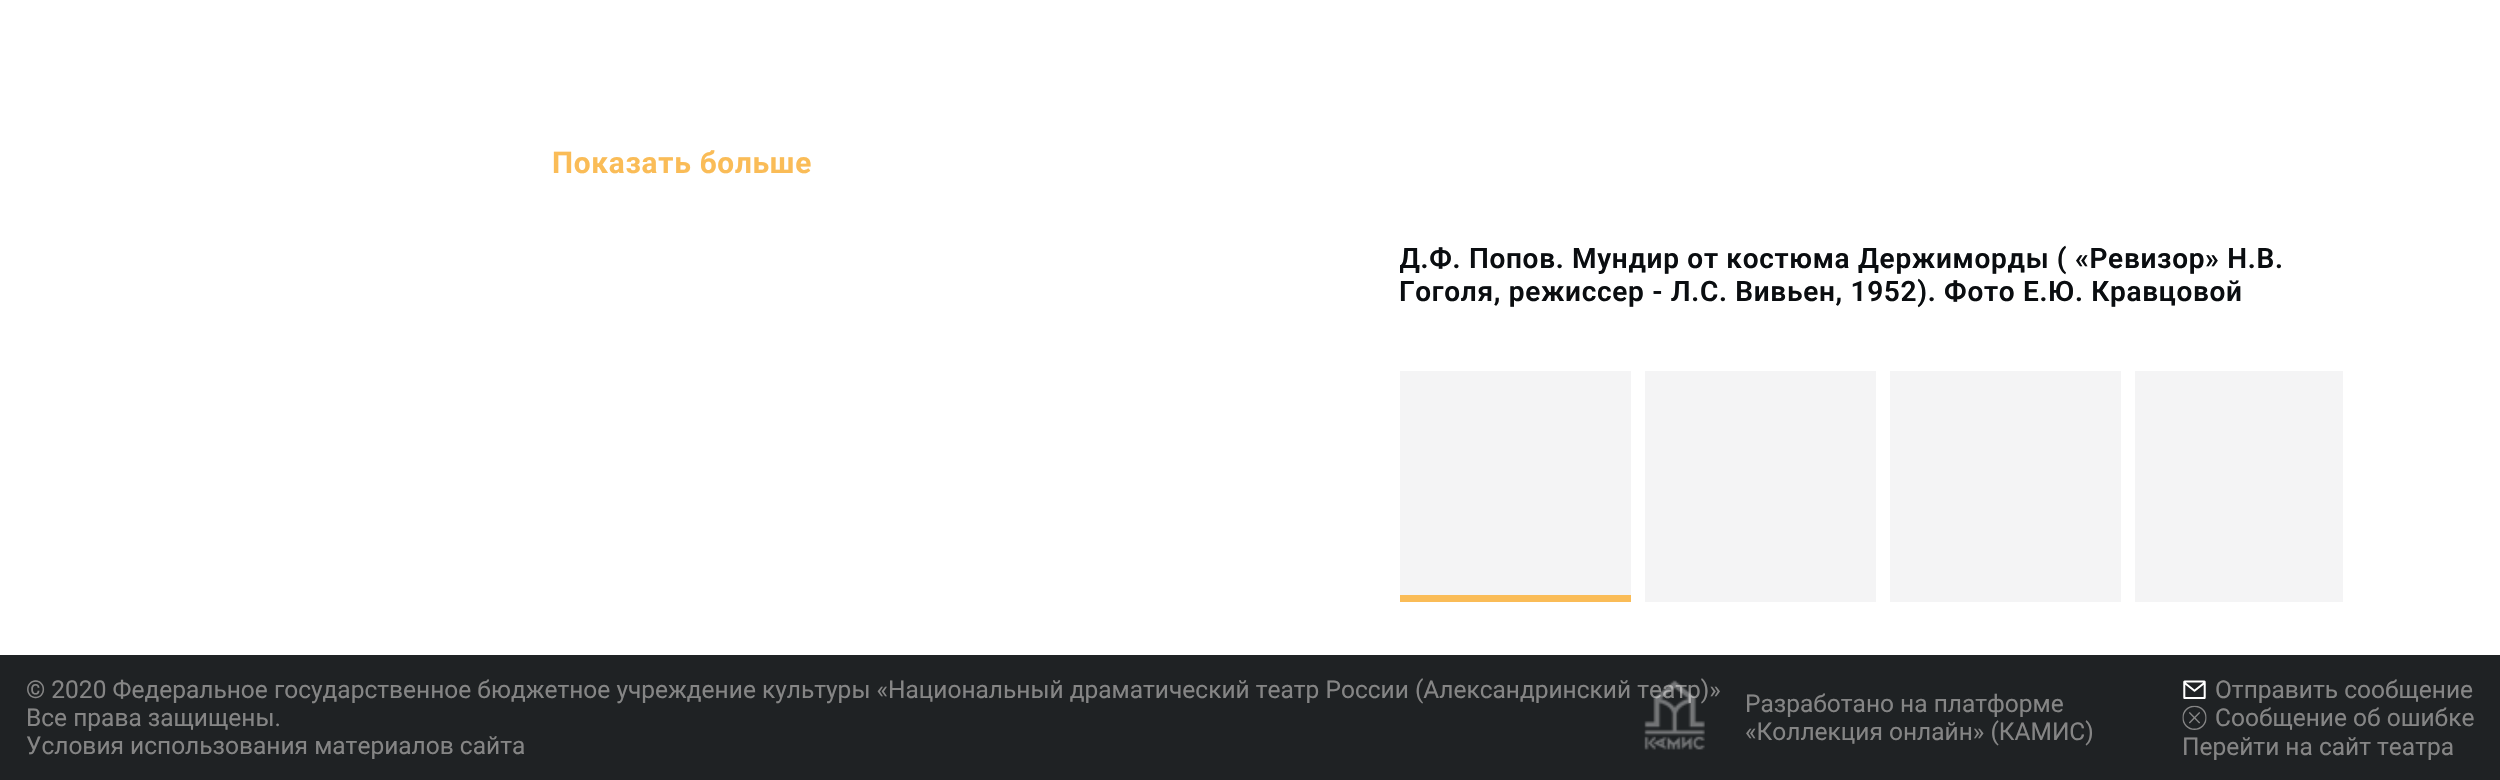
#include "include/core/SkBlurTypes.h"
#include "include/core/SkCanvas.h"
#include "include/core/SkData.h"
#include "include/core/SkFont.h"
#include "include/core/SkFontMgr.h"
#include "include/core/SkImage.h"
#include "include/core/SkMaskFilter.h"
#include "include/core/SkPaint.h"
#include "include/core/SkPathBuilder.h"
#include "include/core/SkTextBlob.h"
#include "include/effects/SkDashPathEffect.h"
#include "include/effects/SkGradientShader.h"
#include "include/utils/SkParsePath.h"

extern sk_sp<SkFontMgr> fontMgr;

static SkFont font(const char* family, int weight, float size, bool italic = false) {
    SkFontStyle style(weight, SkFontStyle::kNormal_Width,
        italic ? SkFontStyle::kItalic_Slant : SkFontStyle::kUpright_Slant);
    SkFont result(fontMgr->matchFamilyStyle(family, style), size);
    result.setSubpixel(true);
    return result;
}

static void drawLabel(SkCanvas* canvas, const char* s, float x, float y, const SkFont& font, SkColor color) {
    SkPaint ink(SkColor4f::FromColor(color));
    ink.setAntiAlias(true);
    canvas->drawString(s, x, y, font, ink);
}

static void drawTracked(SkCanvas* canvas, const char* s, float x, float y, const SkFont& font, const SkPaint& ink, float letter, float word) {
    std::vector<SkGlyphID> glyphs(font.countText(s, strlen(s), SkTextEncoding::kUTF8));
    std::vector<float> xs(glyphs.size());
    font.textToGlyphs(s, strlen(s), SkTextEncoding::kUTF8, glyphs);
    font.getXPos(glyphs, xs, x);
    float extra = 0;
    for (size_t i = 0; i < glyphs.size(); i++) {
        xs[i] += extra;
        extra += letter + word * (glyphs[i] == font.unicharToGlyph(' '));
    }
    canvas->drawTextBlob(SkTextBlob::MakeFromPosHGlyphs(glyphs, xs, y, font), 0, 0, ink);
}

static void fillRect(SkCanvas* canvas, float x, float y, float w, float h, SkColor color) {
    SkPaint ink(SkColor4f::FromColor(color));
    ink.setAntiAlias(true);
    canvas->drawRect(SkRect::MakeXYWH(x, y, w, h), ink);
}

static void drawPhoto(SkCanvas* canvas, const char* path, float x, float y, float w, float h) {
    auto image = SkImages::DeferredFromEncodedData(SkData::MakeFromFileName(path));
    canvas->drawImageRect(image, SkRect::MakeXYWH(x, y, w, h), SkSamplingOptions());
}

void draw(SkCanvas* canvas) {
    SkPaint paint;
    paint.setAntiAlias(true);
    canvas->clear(0xFFFFFFFF);
    SkFont font1 = font("Roboto", 700, 29.75f);
    paint.setColor(0xFFFABC57);
    drawTracked(canvas, "Показать больше", 552, 173, font1, paint, 0.75f, 0);
    canvas->save();
    canvas->clipRect(SkRect::MakeXYWH(1400, 242, 943, 66));
    SkFont font2 = font("Roboto", 600, 28);
    paint.setColor(0xFF0A0D10);
    drawTracked(canvas, "Д.Ф. Попов. Мундир от костюма Держиморды ( «Ревизор» Н.В.", 1399, 268, font2, paint, 0.7f, 0);
    canvas->restore();
    drawTracked(canvas, "Гоголя, режиссер - Л.С. Вивьен, 1952). Фото Е.Ю. Кравцовой", 1399, 301, font2, paint, 0.7f, 0);
    fillRect(canvas, 1400, 371, 231, 224, 0xFFF4F4F5);
    fillRect(canvas, 1400, 595, 231, 7, 0xFFFABC57);
    fillRect(canvas, 1645, 371, 231, 231, 0xFFF4F4F5);
    fillRect(canvas, 1890, 371, 231, 231, 0xFFF4F4F5);
    fillRect(canvas, 2135, 371, 208, 231, 0xFFF4F4F5);
    fillRect(canvas, 0, 655, 2500, 125, 0xFF1F2224);
    SkFont font3 = font("Roboto", 400, 24.5f);
    drawLabel(canvas, "© 2020 Федеральное государственное бюджетное учреждение культуры «Национальный драматический театр России (Александринский театр)»", 26, 698, font3, 0xFF858585);
    drawLabel(canvas, "Все права защищены.", 26, 726, font3, 0xFF858585);
    drawLabel(canvas, "Условия использования материалов сайта", 26, 754, font3, 0xFF858585);
    drawPhoto(canvas, "assets/img1.png", 1644, 680, 61, 70);
    drawLabel(canvas, "Разработано на платформе", 1745, 712, font3, 0xFF858585);
    drawLabel(canvas, "«Коллекция онлайн» (КАМИС)", 1745, 740, font3, 0xFF858585);
    drawPhoto(canvas, "assets/img2.png", 2183, 680, 23, 19);
    drawLabel(canvas, "Отправить сообщение", 2215, 698, font3, 0xFF858585);
    drawPhoto(canvas, "assets/img3.png", 2182, 705, 25, 25);
    drawLabel(canvas, "Сообщение об ошибке", 2215, 726, font3, 0xFF858585);
    drawLabel(canvas, "Перейти на сайт театра", 2182, 755, font3, 0xFF858585);
}
